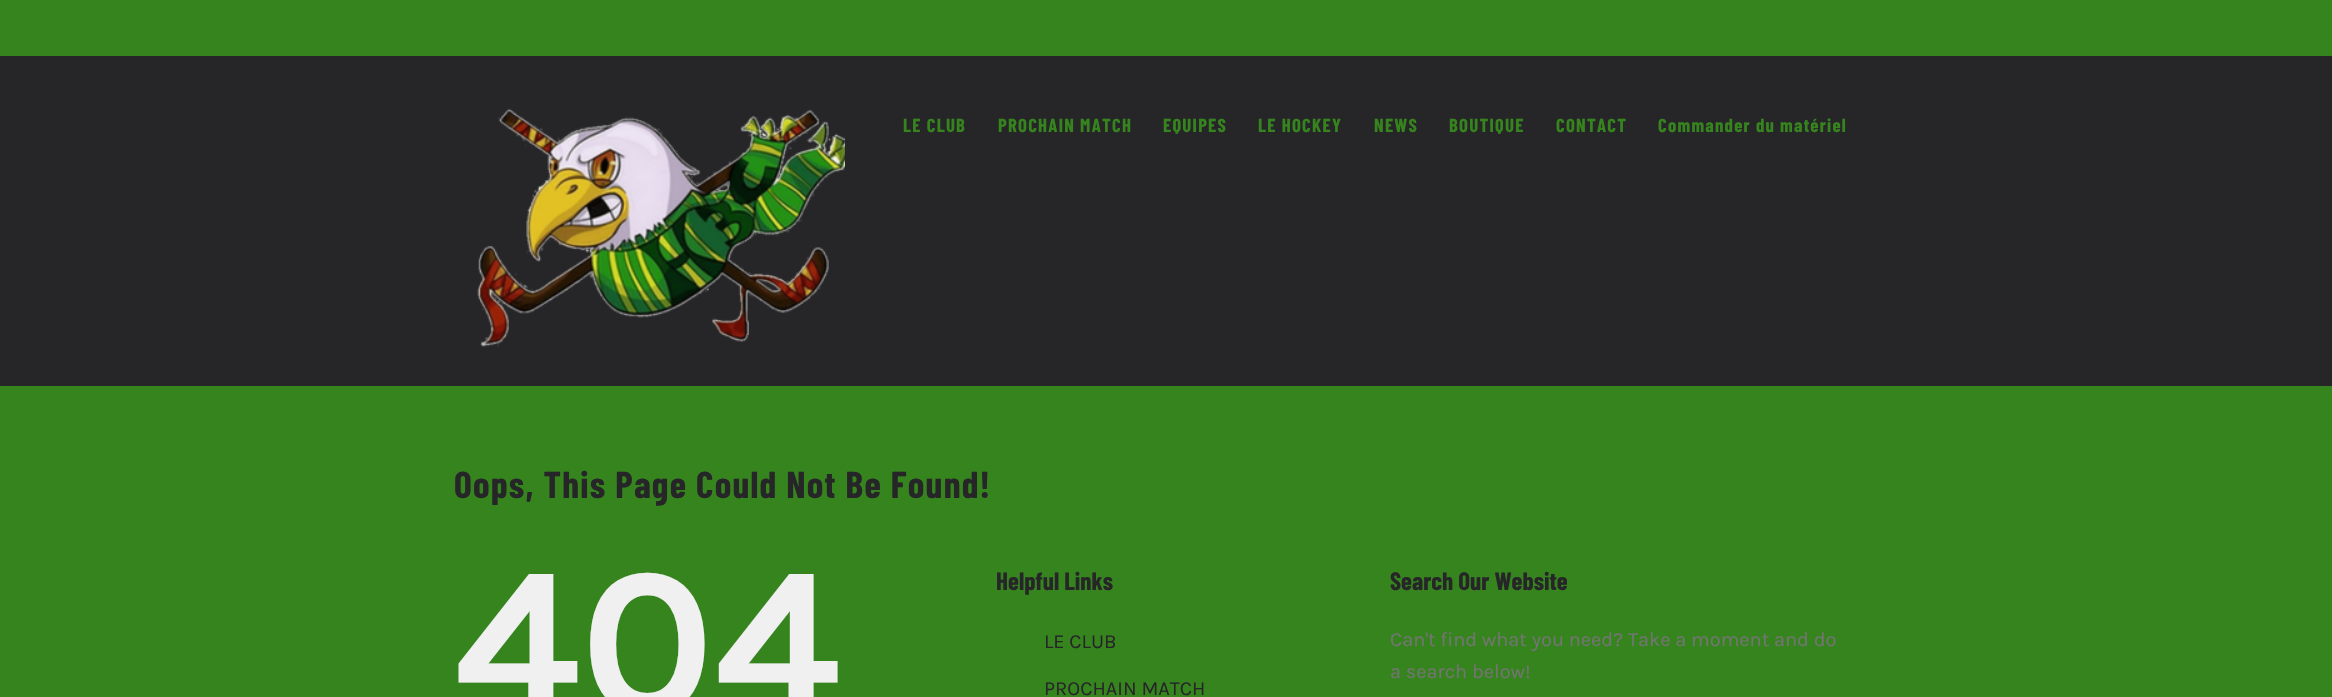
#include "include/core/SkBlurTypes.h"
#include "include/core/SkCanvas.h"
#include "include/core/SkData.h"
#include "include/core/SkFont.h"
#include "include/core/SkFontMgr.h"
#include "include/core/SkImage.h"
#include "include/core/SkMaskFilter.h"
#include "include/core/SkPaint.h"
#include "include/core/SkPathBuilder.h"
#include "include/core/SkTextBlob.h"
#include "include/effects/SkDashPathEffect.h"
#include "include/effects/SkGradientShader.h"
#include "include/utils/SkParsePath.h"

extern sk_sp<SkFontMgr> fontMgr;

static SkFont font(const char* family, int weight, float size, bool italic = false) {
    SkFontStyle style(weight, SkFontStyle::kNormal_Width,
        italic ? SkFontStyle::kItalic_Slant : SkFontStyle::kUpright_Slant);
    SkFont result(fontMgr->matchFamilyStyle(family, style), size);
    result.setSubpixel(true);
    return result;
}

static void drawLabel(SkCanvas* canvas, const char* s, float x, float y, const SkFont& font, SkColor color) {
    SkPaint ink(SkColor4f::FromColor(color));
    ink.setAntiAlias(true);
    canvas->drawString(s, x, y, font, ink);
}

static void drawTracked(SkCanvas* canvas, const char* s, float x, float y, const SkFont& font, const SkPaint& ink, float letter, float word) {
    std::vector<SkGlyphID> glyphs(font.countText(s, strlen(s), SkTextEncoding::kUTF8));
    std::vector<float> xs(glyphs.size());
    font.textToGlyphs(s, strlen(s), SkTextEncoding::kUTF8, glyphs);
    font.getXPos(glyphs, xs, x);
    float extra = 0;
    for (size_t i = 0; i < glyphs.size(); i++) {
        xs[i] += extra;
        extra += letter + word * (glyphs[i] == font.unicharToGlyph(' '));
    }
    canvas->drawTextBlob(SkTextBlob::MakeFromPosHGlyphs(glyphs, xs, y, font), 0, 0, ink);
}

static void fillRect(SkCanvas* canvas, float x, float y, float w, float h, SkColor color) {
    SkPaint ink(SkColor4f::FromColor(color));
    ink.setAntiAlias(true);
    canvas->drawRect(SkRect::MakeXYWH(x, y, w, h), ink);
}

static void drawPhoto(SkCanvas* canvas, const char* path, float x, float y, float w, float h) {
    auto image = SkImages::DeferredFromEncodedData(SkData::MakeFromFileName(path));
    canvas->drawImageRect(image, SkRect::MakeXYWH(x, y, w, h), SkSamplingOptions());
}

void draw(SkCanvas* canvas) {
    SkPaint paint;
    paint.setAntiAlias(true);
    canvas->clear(0xFF36841E);
    fillRect(canvas, 0, 56, 2332, 330, 0xFF262528);
    drawPhoto(canvas, "assets/img1.png", 477, 108, 368, 239);
    SkFont font1 = font("Barlow Condensed", 700, 18.75f);
    paint.setColor(0xFF36841E);
    drawTracked(canvas, "LE CLUB", 903, 132, font1, paint, 1.25f, 0);
    drawTracked(canvas, "PROCHAIN MATCH", 998, 132, font1, paint, 1.25f, 0);
    drawTracked(canvas, "EQUIPES", 1163, 132, font1, paint, 1.25f, 0);
    drawTracked(canvas, "LE HOCKEY", 1258, 132, font1, paint, 1.25f, 0);
    drawTracked(canvas, "NEWS", 1374, 132, font1, paint, 1.25f, 0);
    drawTracked(canvas, "BOUTIQUE", 1449, 132, font1, paint, 1.25f, 0);
    drawTracked(canvas, "CONTACT", 1556, 132, font1, paint, 1.25f, 0);
    drawTracked(canvas, "Commander du matériel", 1658, 132, font1, paint, 1.25f, 0);
    SkFont font2 = font("Barlow Condensed", 700, 37.5f);
    paint.setColor(0xFF262528);
    drawTracked(canvas, "Oops, This Page Could Not Be Found!", 454, 498, font2, paint, 1.25f, 0);
    SkFont font3 = font("Karla", 700, 212);
    drawLabel(canvas, "404", 454, 713, font3, 0xFFF0F0F0);
    SkFont font4 = font("Barlow Condensed", 700, 25);
    drawLabel(canvas, "Helpful Links", 996, 590, font4, 0xFF262528);
    SkFont font5 = font("Karla", 400, 20);
    drawLabel(canvas, "LE CLUB", 1044, 648, font5, 0xFF262528);
    drawLabel(canvas, "PROCHAIN MATCH", 1044, 695, font5, 0xFF262528);
    drawLabel(canvas, "Search Our Website", 1390, 590, font4, 0xFF262528);
    drawLabel(canvas, "Can't find what you need? Take a moment and do", 1390, 646, font5, 0xFF747474);
    drawLabel(canvas, "a search below!", 1390, 678, font5, 0xFF747474);
}
